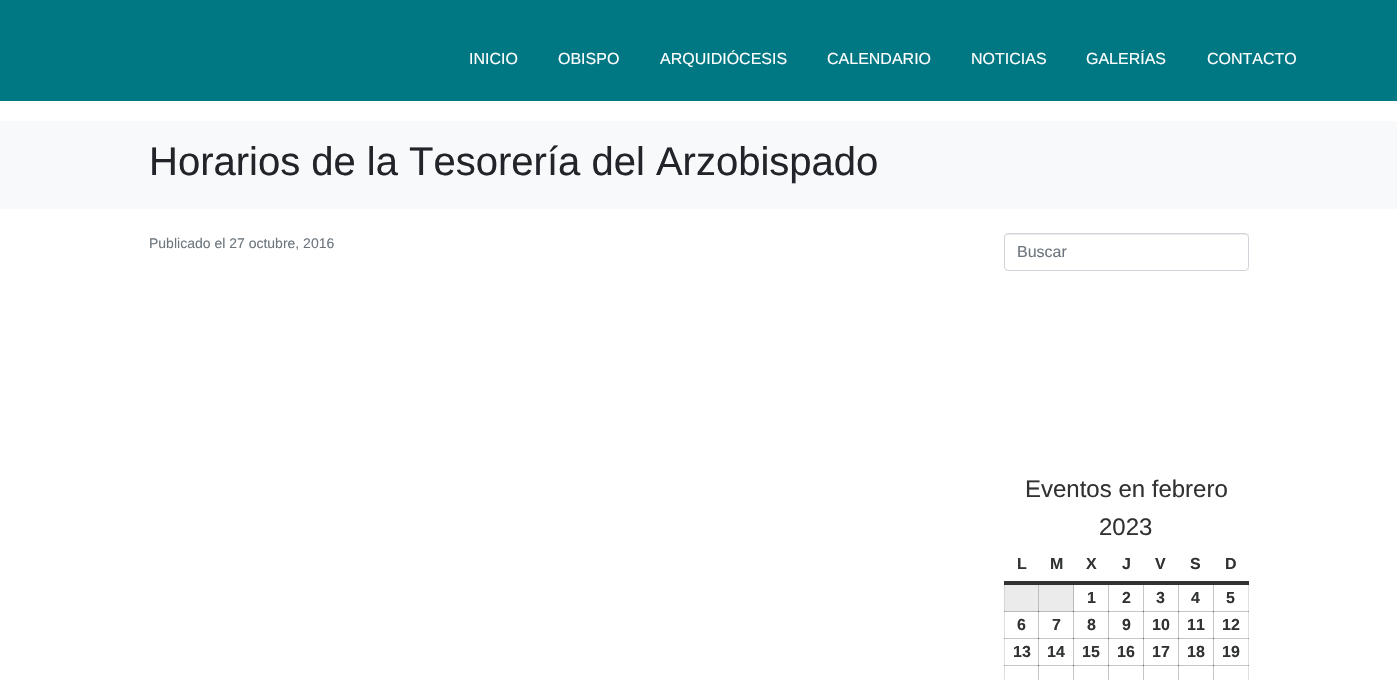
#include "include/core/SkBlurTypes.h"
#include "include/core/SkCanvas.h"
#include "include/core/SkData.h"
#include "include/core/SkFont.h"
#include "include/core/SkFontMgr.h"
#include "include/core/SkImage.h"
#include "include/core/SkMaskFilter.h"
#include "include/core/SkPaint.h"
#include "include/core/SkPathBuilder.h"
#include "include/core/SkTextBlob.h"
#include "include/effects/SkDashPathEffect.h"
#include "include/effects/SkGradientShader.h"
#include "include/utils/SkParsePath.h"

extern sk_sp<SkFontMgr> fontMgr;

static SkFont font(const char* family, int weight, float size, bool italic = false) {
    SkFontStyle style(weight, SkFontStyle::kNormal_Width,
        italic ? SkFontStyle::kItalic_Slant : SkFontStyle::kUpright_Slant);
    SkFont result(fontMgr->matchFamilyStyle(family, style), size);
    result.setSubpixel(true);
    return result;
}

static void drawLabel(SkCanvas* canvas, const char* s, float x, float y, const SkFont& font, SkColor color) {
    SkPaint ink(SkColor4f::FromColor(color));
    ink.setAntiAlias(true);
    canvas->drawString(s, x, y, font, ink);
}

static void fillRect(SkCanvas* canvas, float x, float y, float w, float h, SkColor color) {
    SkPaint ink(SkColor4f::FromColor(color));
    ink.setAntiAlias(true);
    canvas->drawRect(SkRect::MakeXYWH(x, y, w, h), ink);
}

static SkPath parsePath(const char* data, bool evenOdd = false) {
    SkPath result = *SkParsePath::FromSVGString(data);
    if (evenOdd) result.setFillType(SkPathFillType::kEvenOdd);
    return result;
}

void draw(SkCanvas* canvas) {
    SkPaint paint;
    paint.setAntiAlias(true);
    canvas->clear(0xFFFFFFFF);
    fillRect(canvas, 1108, 583, 1, 29, 0xFFC5C5C5);
    fillRect(canvas, 1143, 583, 1, 29, 0xFFC5C5C5);
    fillRect(canvas, 1178, 583, 1, 29, 0xFFC5C5C5);
    fillRect(canvas, 1213, 583, 1, 29, 0xFFC5C5C5);
    fillRect(canvas, 1248, 583, 1, 97, 0xFFE0E0E0);
    fillRect(canvas, 1004, 611, 1, 69, 0xFFE0E0E0);
    fillRect(canvas, 1038, 611, 1, 28, 0xFFC5C5C5);
    fillRect(canvas, 1073, 611, 1, 28, 0xFFC5C5C5);
    fillRect(canvas, 1073, 611, 36, 1, 0xFFC5C5C5);
    fillRect(canvas, 1108, 611, 1, 28, 0xFFC5C5C5);
    fillRect(canvas, 1108, 611, 36, 1, 0xFFC5C5C5);
    fillRect(canvas, 1108, 611, 1, 1, 0xFF5C5C5C);
    fillRect(canvas, 1143, 611, 1, 28, 0xFFC5C5C5);
    fillRect(canvas, 1143, 611, 36, 1, 0xFFC5C5C5);
    fillRect(canvas, 1143, 611, 1, 1, 0xFF5C5C5C);
    fillRect(canvas, 1178, 611, 1, 28, 0xFFC5C5C5);
    fillRect(canvas, 1178, 611, 36, 1, 0xFFC5C5C5);
    fillRect(canvas, 1178, 611, 1, 1, 0xFF5C5C5C);
    fillRect(canvas, 1213, 611, 1, 28, 0xFFC5C5C5);
    fillRect(canvas, 1004, 638, 35, 1, 0xFFC5C5C5);
    fillRect(canvas, 1004, 638, 1, 1, 0xFF989898);
    fillRect(canvas, 1038, 638, 1, 28, 0xFFC5C5C5);
    fillRect(canvas, 1038, 638, 36, 1, 0xFFC5C5C5);
    fillRect(canvas, 1038, 638, 1, 1, 0xFF5C5C5C);
    fillRect(canvas, 1073, 638, 1, 28, 0xFFC5C5C5);
    fillRect(canvas, 1073, 638, 36, 1, 0xFFC5C5C5);
    fillRect(canvas, 1073, 638, 1, 1, 0xFF5C5C5C);
    fillRect(canvas, 1108, 638, 1, 28, 0xFFC5C5C5);
    fillRect(canvas, 1108, 638, 36, 1, 0xFFC5C5C5);
    fillRect(canvas, 1108, 638, 1, 1, 0xFF5C5C5C);
    fillRect(canvas, 1143, 638, 1, 28, 0xFFC5C5C5);
    fillRect(canvas, 1143, 638, 36, 1, 0xFFC5C5C5);
    fillRect(canvas, 1143, 638, 1, 1, 0xFF5C5C5C);
    fillRect(canvas, 1178, 638, 1, 28, 0xFFC5C5C5);
    fillRect(canvas, 1178, 638, 36, 1, 0xFFC5C5C5);
    fillRect(canvas, 1178, 638, 1, 1, 0xFF5C5C5C);
    fillRect(canvas, 1213, 638, 1, 28, 0xFFC5C5C5);
    fillRect(canvas, 1004, 665, 35, 1, 0xFFC5C5C5);
    fillRect(canvas, 1004, 665, 1, 1, 0xFF989898);
    fillRect(canvas, 1038, 665, 1, 15, 0xFFC5C5C5);
    fillRect(canvas, 1038, 665, 36, 1, 0xFFC5C5C5);
    fillRect(canvas, 1038, 665, 1, 1, 0xFF5C5C5C);
    fillRect(canvas, 1073, 665, 1, 15, 0xFFC5C5C5);
    fillRect(canvas, 1073, 665, 36, 1, 0xFFC5C5C5);
    fillRect(canvas, 1073, 665, 1, 1, 0xFF5C5C5C);
    fillRect(canvas, 1108, 665, 1, 15, 0xFFC5C5C5);
    fillRect(canvas, 1108, 665, 36, 1, 0xFFC5C5C5);
    fillRect(canvas, 1108, 665, 1, 1, 0xFF5C5C5C);
    fillRect(canvas, 1143, 665, 1, 15, 0xFFC5C5C5);
    fillRect(canvas, 1143, 665, 36, 1, 0xFFC5C5C5);
    fillRect(canvas, 1143, 665, 1, 1, 0xFF5C5C5C);
    fillRect(canvas, 1178, 665, 1, 15, 0xFFC5C5C5);
    fillRect(canvas, 1178, 665, 36, 1, 0xFFC5C5C5);
    fillRect(canvas, 1178, 665, 1, 1, 0xFF5C5C5C);
    fillRect(canvas, 1213, 665, 1, 15, 0xFFC5C5C5);
    fillRect(canvas, 0, 0, 1397, 101, 0xFF007884);
    SkFont font1 = font("Liberation Sans", 400, 16);
    drawLabel(canvas, "INICIO", 469, 64, font1, 0xFFFFFFFF);
    drawLabel(canvas, "OBISPO", 558, 64, font1, 0xFFFFFFFF);
    drawLabel(canvas, "ARQUIDIÓCESIS", 660, 64, font1, 0xFFFFFFFF);
    drawLabel(canvas, "CALENDARIO", 827, 64, font1, 0xFFFFFFFF);
    drawLabel(canvas, "NOTICIAS", 971, 64, font1, 0xFFFFFFFF);
    drawLabel(canvas, "GALERÍAS", 1086, 64, font1, 0xFFFFFFFF);
    drawLabel(canvas, "CONTACTO", 1207, 64, font1, 0xFFFFFFFF);
    fillRect(canvas, 0, 121, 1397, 88, 0xFFF8F9FA);
    SkFont font2 = font("Liberation Sans", 400, 40);
    drawLabel(canvas, "Horarios de la Tesorería del Arzobispado", 149, 175, font2, 0xFF212529);
    SkFont font3 = font("Liberation Sans", 400, 14);
    drawLabel(canvas, "Publicado el 27 octubre, 2016", 149, 248, font3, 0xFF6C757D);
    paint.setColor(0xFFECECEC);
    canvas->drawPath(parsePath("M1008 235H1246L1248 236V238C1248 236 1247 234 1245 234H1008C1006 234 1005 236 1005 238C1005 236 1006 235 1008 235Z"), paint);
    paint.setStroke(true);
    paint.setStrokeWidth(1);
    paint.setColor(0xFFCED4DA);
    canvas->drawRoundRect(SkRect::MakeXYWH(1004.5f, 233.5f, 244, 37), 3.5f, 3.5f, paint);
    drawLabel(canvas, "Buscar", 1017, 257, font1, 0xFF6C757D);
    SkFont font4 = font("Liberation Sans", 400, 24);
    drawLabel(canvas, "Eventos en febrero", 1025, 497, font4, 0xFF313233);
    drawLabel(canvas, "2023", 1099, 535, font4, 0xFF313233);
    fillRect(canvas, 1004, 583, 1, 29, 0xFFD4D4D4);
    fillRect(canvas, 1038, 583, 1, 29, 0xFFBFBFBF);
    fillRect(canvas, 1073, 583, 1, 29, 0xFFBABABA);
    fillRect(canvas, 1004, 581, 245, 4, 0xFF313233);
    SkFont font5 = font("Liberation Sans", 700, 16);
    drawLabel(canvas, "L", 1017, 569, font5, 0xFF313233);
    drawLabel(canvas, "M", 1050, 569, font5, 0xFF313233);
    drawLabel(canvas, "X", 1086, 569, font5, 0xFF313233);
    drawLabel(canvas, "J", 1122, 569, font5, 0xFF313233);
    drawLabel(canvas, "V", 1155, 569, font5, 0xFF313233);
    drawLabel(canvas, "S", 1190, 569, font5, 0xFF313233);
    drawLabel(canvas, "D", 1225, 569, font5, 0xFF313233);
    fillRect(canvas, 1005, 585, 33, 26, 0xFFEBEBEB);
    fillRect(canvas, 1004, 611, 35, 1, 0xFFBABABA);
    fillRect(canvas, 1004, 611, 1, 1, 0xFF949494);
    fillRect(canvas, 1038, 611, 1, 1, 0xFF5D5D5D);
    fillRect(canvas, 1039, 585, 34, 26, 0xFFEBEBEB);
    fillRect(canvas, 1039, 611, 35, 1, 0xFFBABABA);
    fillRect(canvas, 1073, 611, 1, 1, 0xFF585858);
    drawLabel(canvas, "1", 1087, 603, font5, 0xFF313233);
    drawLabel(canvas, "2", 1122, 603, font5, 0xFF313233);
    drawLabel(canvas, "3", 1156, 603, font5, 0xFF313233);
    drawLabel(canvas, "4", 1191, 603, font5, 0xFF313233);
    drawLabel(canvas, "5", 1226, 603, font5, 0xFF313233);
    drawLabel(canvas, "6", 1017, 630, font5, 0xFF313233);
    drawLabel(canvas, "7", 1052, 630, font5, 0xFF313233);
    drawLabel(canvas, "8", 1087, 630, font5, 0xFF313233);
    drawLabel(canvas, "9", 1122, 630, font5, 0xFF313233);
    drawLabel(canvas, "10", 1152, 630, font5, 0xFF313233);
    drawLabel(canvas, "11", 1187, 630, font5, 0xFF313233);
    fillRect(canvas, 1213, 611, 36, 1, 0xFFC5C5C5);
    fillRect(canvas, 1213, 611, 1, 1, 0xFF5C5C5C);
    fillRect(canvas, 1248, 611, 1, 1, 0xFF989898);
    drawLabel(canvas, "12", 1222, 630, font5, 0xFF313233);
    drawLabel(canvas, "13", 1013, 657, font5, 0xFF313233);
    drawLabel(canvas, "14", 1047, 657, font5, 0xFF313233);
    drawLabel(canvas, "15", 1082, 657, font5, 0xFF313233);
    drawLabel(canvas, "16", 1117, 657, font5, 0xFF313233);
    drawLabel(canvas, "17", 1152, 657, font5, 0xFF313233);
    drawLabel(canvas, "18", 1187, 657, font5, 0xFF313233);
    fillRect(canvas, 1213, 638, 36, 1, 0xFFC5C5C5);
    fillRect(canvas, 1213, 638, 1, 1, 0xFF5C5C5C);
    fillRect(canvas, 1248, 638, 1, 1, 0xFF989898);
    drawLabel(canvas, "19", 1222, 657, font5, 0xFF313233);
    fillRect(canvas, 1213, 665, 36, 1, 0xFFC5C5C5);
    fillRect(canvas, 1213, 665, 1, 1, 0xFF5C5C5C);
    fillRect(canvas, 1248, 665, 1, 1, 0xFF989898);
}
